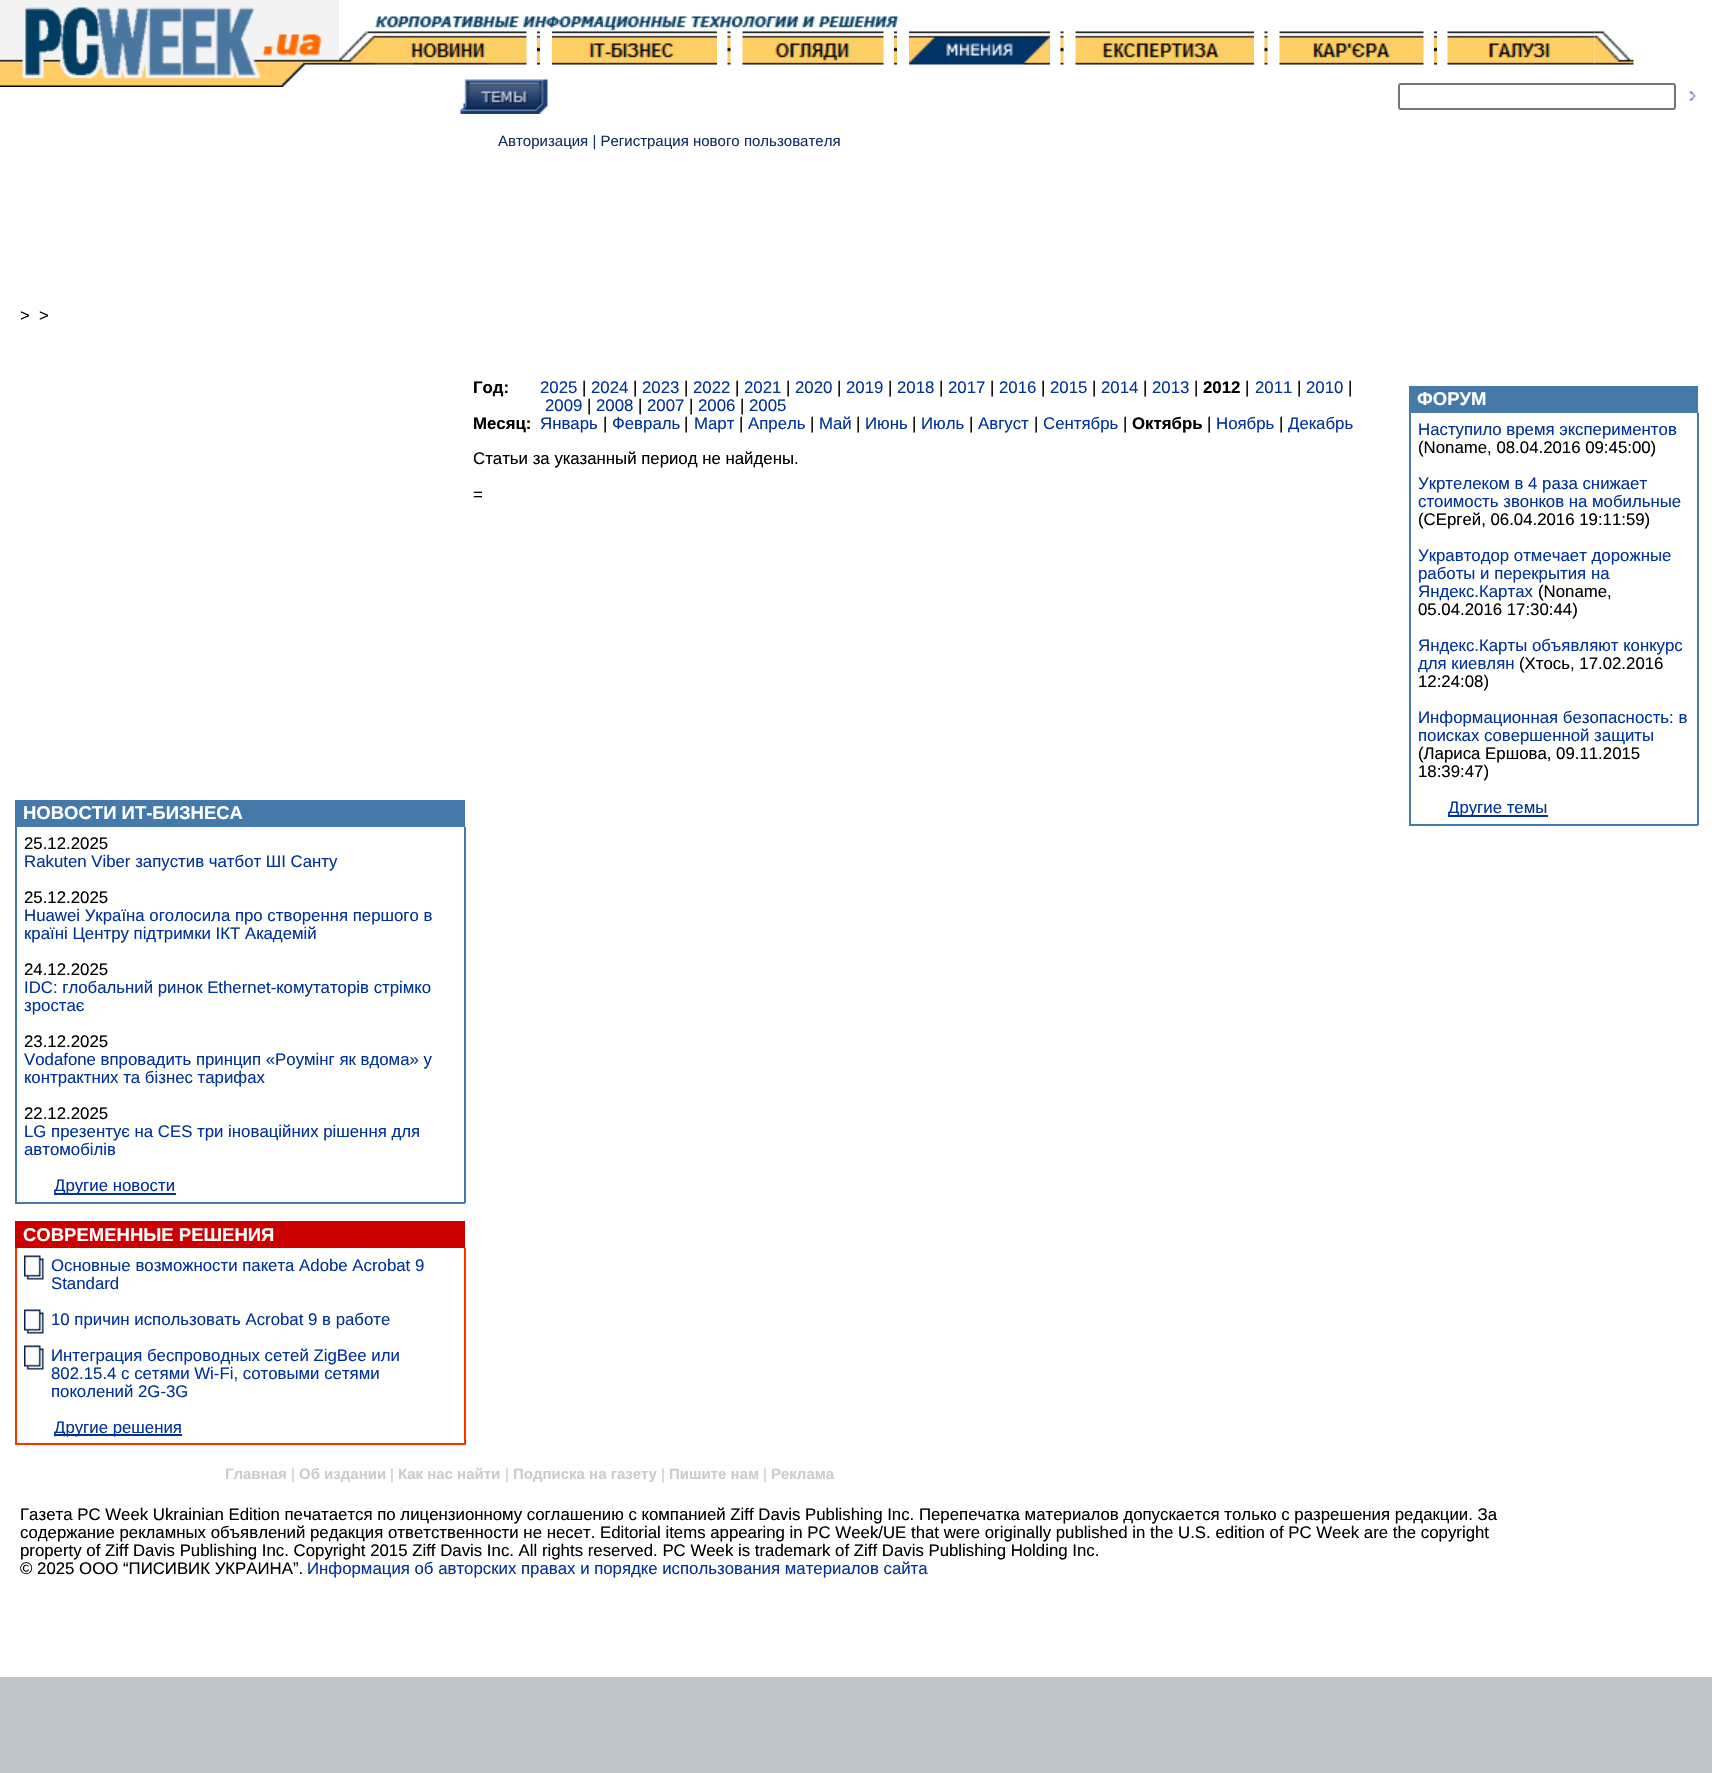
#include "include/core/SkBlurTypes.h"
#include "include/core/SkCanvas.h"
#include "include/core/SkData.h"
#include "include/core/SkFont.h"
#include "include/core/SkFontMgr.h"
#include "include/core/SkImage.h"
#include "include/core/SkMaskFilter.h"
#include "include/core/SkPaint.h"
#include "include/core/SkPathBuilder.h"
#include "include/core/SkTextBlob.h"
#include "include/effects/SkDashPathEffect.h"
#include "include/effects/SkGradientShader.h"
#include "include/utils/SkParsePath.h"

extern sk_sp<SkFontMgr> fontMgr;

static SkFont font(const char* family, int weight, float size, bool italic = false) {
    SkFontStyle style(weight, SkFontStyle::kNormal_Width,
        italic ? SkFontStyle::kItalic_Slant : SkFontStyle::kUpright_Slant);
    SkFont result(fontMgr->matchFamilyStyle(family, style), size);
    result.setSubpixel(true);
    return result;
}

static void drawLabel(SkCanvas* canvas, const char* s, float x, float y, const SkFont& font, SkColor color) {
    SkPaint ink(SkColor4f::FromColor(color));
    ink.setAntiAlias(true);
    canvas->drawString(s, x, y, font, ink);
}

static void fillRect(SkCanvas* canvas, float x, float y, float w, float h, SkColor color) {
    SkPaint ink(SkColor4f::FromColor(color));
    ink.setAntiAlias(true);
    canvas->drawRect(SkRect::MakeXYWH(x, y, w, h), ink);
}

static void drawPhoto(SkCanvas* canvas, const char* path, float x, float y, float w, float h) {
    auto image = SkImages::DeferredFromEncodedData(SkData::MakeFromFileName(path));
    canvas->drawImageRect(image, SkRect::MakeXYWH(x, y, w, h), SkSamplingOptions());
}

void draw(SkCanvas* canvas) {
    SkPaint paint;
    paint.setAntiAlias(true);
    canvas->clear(0xFFBEC5CB);
    fillRect(canvas, 0, 0, 1712, 1677, 0xFFFFFFFF);
    drawPhoto(canvas, "assets/img1.png", 0, 0, 339, 87);
    drawPhoto(canvas, "assets/img2.png", 375, 16, 524, 15);
    drawPhoto(canvas, "assets/img3.png", 339, 31, 36, 34);
    drawPhoto(canvas, "assets/img4.png", 375, 31, 152, 34);
    drawPhoto(canvas, "assets/img5.png", 537, 31, 3, 34);
    drawPhoto(canvas, "assets/img6.png", 552, 31, 165, 34);
    drawPhoto(canvas, "assets/img7.png", 727, 31, 4, 34);
    drawPhoto(canvas, "assets/img8.png", 742, 31, 142, 34);
    drawPhoto(canvas, "assets/img5.png", 894, 31, 3, 34);
    drawPhoto(canvas, "assets/img9.png", 909, 31, 141, 34);
    drawPhoto(canvas, "assets/img7.png", 1060, 31, 4, 34);
    drawPhoto(canvas, "assets/img10.png", 1075, 31, 179, 34);
    drawPhoto(canvas, "assets/img7.png", 1264, 31, 4, 34);
    drawPhoto(canvas, "assets/img11.png", 1279, 31, 145, 34);
    drawPhoto(canvas, "assets/img5.png", 1434, 31, 3, 34);
    drawPhoto(canvas, "assets/img12.png", 1447, 31, 148, 34);
    drawPhoto(canvas, "assets/img13.png", 1594, 31, 37, 34);
    drawPhoto(canvas, "assets/img14.png", 1630, 59, 4, 6);
    drawPhoto(canvas, "assets/img15.png", 460, 79, 88, 35);
    paint.setStroke(true);
    paint.setStrokeWidth(2);
    paint.setColor(0xFF767676);
    canvas->drawRoundRect(SkRect::MakeXYWH(1399, 84, 276, 25), 2, 2, paint);
    drawPhoto(canvas, "assets/img16.png", 1688, 91, 8, 10);
    SkFont font1 = font("Liberation Sans", 400, 15);
    drawLabel(canvas, "Авторизация | Регистрация нового пользователя", 498, 146, font1, 0xFF113060);
    SkFont font2 = font("Liberation Sans", 400, 16.8f);
    drawLabel(canvas, ">", 20, 321, font2, 0xFF000000);
    drawLabel(canvas, ">", 39, 321, font2, 0xFF000000);
    SkFont font3 = font("Liberation Sans", 700, 16.8f);
    drawLabel(canvas, "Год:", 473, 393, font3, 0xFF000000);
    drawLabel(canvas, "2025", 540, 393, font2, 0xFF003399);
    drawLabel(canvas, "|", 582, 393, font2, 0xFF000000);
    drawLabel(canvas, "2024", 591, 393, font2, 0xFF003399);
    drawLabel(canvas, "|", 633, 393, font2, 0xFF000000);
    drawLabel(canvas, "2023", 642, 393, font2, 0xFF003399);
    drawLabel(canvas, "|", 684, 393, font2, 0xFF000000);
    drawLabel(canvas, "2022", 693, 393, font2, 0xFF003399);
    drawLabel(canvas, "|", 735, 393, font2, 0xFF000000);
    drawLabel(canvas, "2021", 744, 393, font2, 0xFF003399);
    drawLabel(canvas, "|", 786, 393, font2, 0xFF000000);
    drawLabel(canvas, "2020", 795, 393, font2, 0xFF003399);
    drawLabel(canvas, "|", 837, 393, font2, 0xFF000000);
    drawLabel(canvas, "2019", 846, 393, font2, 0xFF003399);
    drawLabel(canvas, "|", 888, 393, font2, 0xFF000000);
    drawLabel(canvas, "2018", 897, 393, font2, 0xFF003399);
    drawLabel(canvas, "|", 939, 393, font2, 0xFF000000);
    drawLabel(canvas, "2017", 948, 393, font2, 0xFF003399);
    drawLabel(canvas, "|", 990, 393, font2, 0xFF000000);
    drawLabel(canvas, "2016", 999, 393, font2, 0xFF003399);
    drawLabel(canvas, "|", 1041, 393, font2, 0xFF000000);
    drawLabel(canvas, "2015", 1050, 393, font2, 0xFF003399);
    drawLabel(canvas, "|", 1092, 393, font2, 0xFF000000);
    drawLabel(canvas, "2014", 1101, 393, font2, 0xFF003399);
    drawLabel(canvas, "|", 1143, 393, font2, 0xFF000000);
    drawLabel(canvas, "2013", 1152, 393, font2, 0xFF003399);
    drawLabel(canvas, "|", 1194, 393, font2, 0xFF000000);
    drawLabel(canvas, "2012", 1203, 393, font3, 0xFF000000);
    drawLabel(canvas, "|", 1245, 393, font2, 0xFF000000);
    drawLabel(canvas, "2011", 1255, 393, font2, 0xFF003399);
    drawLabel(canvas, "|", 1297, 393, font2, 0xFF000000);
    drawLabel(canvas, "2010", 1306, 393, font2, 0xFF003399);
    drawLabel(canvas, "|", 1348, 393, font2, 0xFF000000);
    drawLabel(canvas, "2009", 545, 411, font2, 0xFF003399);
    drawLabel(canvas, "|", 587, 411, font2, 0xFF000000);
    drawLabel(canvas, "2008", 596, 411, font2, 0xFF003399);
    drawLabel(canvas, "|", 638, 411, font2, 0xFF000000);
    drawLabel(canvas, "2007", 647, 411, font2, 0xFF003399);
    drawLabel(canvas, "|", 689, 411, font2, 0xFF000000);
    drawLabel(canvas, "2006", 698, 411, font2, 0xFF003399);
    drawLabel(canvas, "|", 740, 411, font2, 0xFF000000);
    drawLabel(canvas, "2005", 749, 411, font2, 0xFF003399);
    drawLabel(canvas, "Месяц:", 473, 429, font3, 0xFF000000);
    drawLabel(canvas, "Январь", 540, 429, font2, 0xFF003399);
    drawLabel(canvas, "|", 603, 429, font2, 0xFF000000);
    drawLabel(canvas, "Февраль", 612, 429, font2, 0xFF003399);
    drawLabel(canvas, "|", 684, 429, font2, 0xFF000000);
    drawLabel(canvas, "Март", 694, 429, font2, 0xFF003399);
    drawLabel(canvas, "|", 739, 429, font2, 0xFF000000);
    drawLabel(canvas, "Апрель", 748, 429, font2, 0xFF003399);
    drawLabel(canvas, "|", 810, 429, font2, 0xFF000000);
    drawLabel(canvas, "Май", 819, 429, font2, 0xFF003399);
    drawLabel(canvas, "|", 856, 429, font2, 0xFF000000);
    drawLabel(canvas, "Июнь", 865, 429, font2, 0xFF003399);
    drawLabel(canvas, "|", 912, 429, font2, 0xFF000000);
    drawLabel(canvas, "Июль", 921, 429, font2, 0xFF003399);
    drawLabel(canvas, "|", 969, 429, font2, 0xFF000000);
    drawLabel(canvas, "Август", 978, 429, font2, 0xFF003399);
    drawLabel(canvas, "|", 1034, 429, font2, 0xFF000000);
    drawLabel(canvas, "Сентябрь", 1043, 429, font2, 0xFF003399);
    drawLabel(canvas, "|", 1123, 429, font2, 0xFF000000);
    drawLabel(canvas, "Октябрь", 1132, 429, font3, 0xFF000000);
    drawLabel(canvas, "|", 1207, 429, font2, 0xFF000000);
    drawLabel(canvas, "Ноябрь", 1216, 429, font2, 0xFF003399);
    drawLabel(canvas, "|", 1279, 429, font2, 0xFF000000);
    drawLabel(canvas, "Декабрь", 1288, 429, font2, 0xFF003399);
    drawLabel(canvas, "Статьи за указанный период не найдены.", 473, 464, font2, 0xFF000000);
    drawLabel(canvas, "=", 473, 500, font2, 0xFF000000);
    fillRect(canvas, 1409, 386, 289, 27, 0xFF4579A9);
    SkFont font4 = font("Liberation Sans", 700, 18.5f);
    drawLabel(canvas, "ФОРУМ", 1417, 405, font4, 0xFFFFFFFF);
    fillRect(canvas, 1697, 413, 2, 412, 0xFF4579A9);
    fillRect(canvas, 1409, 824, 289, 2, 0xFF4579A9);
    fillRect(canvas, 1409, 413, 2, 412, 0xFF4579A9);
    drawLabel(canvas, "Наступило время экспериментов", 1418, 435, font2, 0xFF003399);
    drawLabel(canvas, "(Noname, 08.04.2016 09:45:00)", 1418, 453, font2, 0xFF000000);
    drawLabel(canvas, "Укртелеком в 4 раза снижает", 1418, 489, font2, 0xFF003399);
    drawLabel(canvas, "стоимость звонков на мобильные", 1418, 507, font2, 0xFF003399);
    drawLabel(canvas, "(СЕргей, 06.04.2016 19:11:59)", 1418, 525, font2, 0xFF000000);
    drawLabel(canvas, "Укравтодор отмечает дорожные", 1418, 561, font2, 0xFF003399);
    drawLabel(canvas, "работы и перекрытия на", 1418, 579, font2, 0xFF003399);
    drawLabel(canvas, "Яндекс.Картах", 1418, 597, font2, 0xFF003399);
    drawLabel(canvas, "(Noname,", 1538, 597, font2, 0xFF000000);
    drawLabel(canvas, "05.04.2016 17:30:44)", 1418, 615, font2, 0xFF000000);
    drawLabel(canvas, "Яндекс.Карты объявляют конкурс", 1418, 651, font2, 0xFF003399);
    drawLabel(canvas, "для киевлян", 1418, 669, font2, 0xFF003399);
    drawLabel(canvas, "(Хтось, 17.02.2016", 1519, 669, font2, 0xFF000000);
    drawLabel(canvas, "12:24:08)", 1418, 687, font2, 0xFF000000);
    drawLabel(canvas, "Информационная безопасность: в", 1418, 723, font2, 0xFF003399);
    drawLabel(canvas, "поисках совершенной защиты", 1418, 741, font2, 0xFF003399);
    drawLabel(canvas, "(Лариса Ершова, 09.11.2015", 1418, 759, font2, 0xFF000000);
    drawLabel(canvas, "18:39:47)", 1418, 777, font2, 0xFF000000);
    fillRect(canvas, 1448, 815, 100, 2, 0xFF003399);
    drawLabel(canvas, "Другие темы", 1448, 813, font2, 0xFF003399);
    fillRect(canvas, 15, 800, 450, 27, 0xFF4579A9);
    drawLabel(canvas, "НОВОСТИ ИТ-БИЗНЕСА", 23, 819, font4, 0xFFFFFFFF);
    fillRect(canvas, 464, 827, 2, 376, 0xFF4579A9);
    fillRect(canvas, 15, 1202, 450, 2, 0xFF4579A9);
    fillRect(canvas, 15, 827, 2, 376, 0xFF4579A9);
    drawLabel(canvas, "25.12.2025", 24, 849, font2, 0xFF000000);
    drawLabel(canvas, "Rakuten Viber запустив чатбот ШІ Санту", 24, 867, font2, 0xFF003399);
    drawLabel(canvas, "25.12.2025", 24, 903, font2, 0xFF000000);
    drawLabel(canvas, "Huawei Україна оголосила про створення першого в", 24, 921, font2, 0xFF003399);
    drawLabel(canvas, "країні Центру підтримки ІКТ Академій", 24, 939, font2, 0xFF003399);
    drawLabel(canvas, "24.12.2025", 24, 975, font2, 0xFF000000);
    drawLabel(canvas, "IDC: глобальний ринок Ethernet-комутаторів стрімко", 24, 993, font2, 0xFF003399);
    drawLabel(canvas, "зростає", 24, 1011, font2, 0xFF003399);
    drawLabel(canvas, "23.12.2025", 24, 1047, font2, 0xFF000000);
    drawLabel(canvas, "Vodafone впровадить принцип «Роумінг як вдома» у", 24, 1065, font2, 0xFF003399);
    drawLabel(canvas, "контрактних та бізнес тарифах", 24, 1083, font2, 0xFF003399);
    drawLabel(canvas, "22.12.2025", 24, 1119, font2, 0xFF000000);
    drawLabel(canvas, "LG презентує на CES три іноваційних рішення для", 24, 1137, font2, 0xFF003399);
    drawLabel(canvas, "автомобілів", 24, 1155, font2, 0xFF003399);
    fillRect(canvas, 54, 1193, 122, 2, 0xFF003399);
    drawLabel(canvas, "Другие новости", 54, 1191, font2, 0xFF003399);
    fillRect(canvas, 15, 1221, 450, 27, 0xFFCC0000);
    drawLabel(canvas, "СОВРЕМЕННЫЕ РЕШЕНИЯ", 23, 1241, font4, 0xFFFFFFFF);
    fillRect(canvas, 464, 1248, 2, 197, 0xFFFF3300);
    fillRect(canvas, 15, 1443, 450, 2, 0xFFFF3300);
    fillRect(canvas, 15, 1248, 2, 197, 0xFFFF3300);
    drawPhoto(canvas, "assets/img17.png", 24, 1255, 20, 25);
    drawLabel(canvas, "Основные возможности пакета Adobe Acrobat 9", 51, 1271, font2, 0xFF003399);
    drawLabel(canvas, "Standard", 51, 1289, font2, 0xFF003399);
    drawPhoto(canvas, "assets/img17.png", 24, 1309, 20, 25);
    drawLabel(canvas, "10 причин использовать Acrobat 9 в работе", 51, 1325, font2, 0xFF003399);
    drawPhoto(canvas, "assets/img17.png", 24, 1345, 20, 25);
    drawLabel(canvas, "Интеграция беспроводных сетей ZigBee или", 51, 1361, font2, 0xFF003399);
    drawLabel(canvas, "802.15.4 с сетями Wi-Fi, сотовыми сетями", 51, 1379, font2, 0xFF003399);
    drawLabel(canvas, "поколений 2G-3G", 51, 1397, font2, 0xFF003399);
    fillRect(canvas, 54, 1434, 128, 2, 0xFF003399);
    drawLabel(canvas, "Другие решения", 54, 1433, font2, 0xFF003399);
    SkFont font5 = font("Liberation Sans", 700, 15);
    drawLabel(canvas, "Главная", 225, 1479, font5, 0xFFCCCCCC);
    drawLabel(canvas, "|", 291, 1479, font1, 0xFFCCCCCC);
    drawLabel(canvas, "Об издании", 299, 1479, font5, 0xFFCCCCCC);
    drawLabel(canvas, "|", 390, 1479, font1, 0xFFCCCCCC);
    drawLabel(canvas, "Как нас найти", 398, 1479, font5, 0xFFCCCCCC);
    drawLabel(canvas, "|", 505, 1479, font1, 0xFFCCCCCC);
    drawLabel(canvas, "Подписка на газету", 513, 1479, font5, 0xFFCCCCCC);
    drawLabel(canvas, "|", 661, 1479, font1, 0xFFCCCCCC);
    drawLabel(canvas, "Пишите нам", 669, 1479, font5, 0xFFCCCCCC);
    drawLabel(canvas, "|", 763, 1479, font1, 0xFFCCCCCC);
    drawLabel(canvas, "Реклама", 771, 1479, font5, 0xFFCCCCCC);
    drawLabel(canvas, "Газета PC Week Ukrainian Edition печатается по лицензионному соглашению с компанией Ziff Davis Publishing Inc. Перепечатка материалов допускается только c разрешения редакции. За", 20, 1520, font2, 0xFF000000);
    drawLabel(canvas, "содержание рекламных объявлений редакция ответственности не несет. Editorial items appearing in PC Week/UE that were originally published in the U.S. edition of PC Week are the copyright", 20, 1538, font2, 0xFF000000);
    drawLabel(canvas, "property of Ziff Davis Publishing Inc. Copyright 2015 Ziff Davis Inc. All rights reserved. PC Week is trademark of Ziff Davis Publishing Holding Inc.", 20, 1556, font2, 0xFF000000);
    drawLabel(canvas, "© 2025 ООО “ПИСИВИК УКРАИНА”.", 20, 1574, font2, 0xFF000000);
    drawLabel(canvas, "Информация об авторских правах и порядке использования материалов сайта", 307, 1574, font2, 0xFF003399);
}
